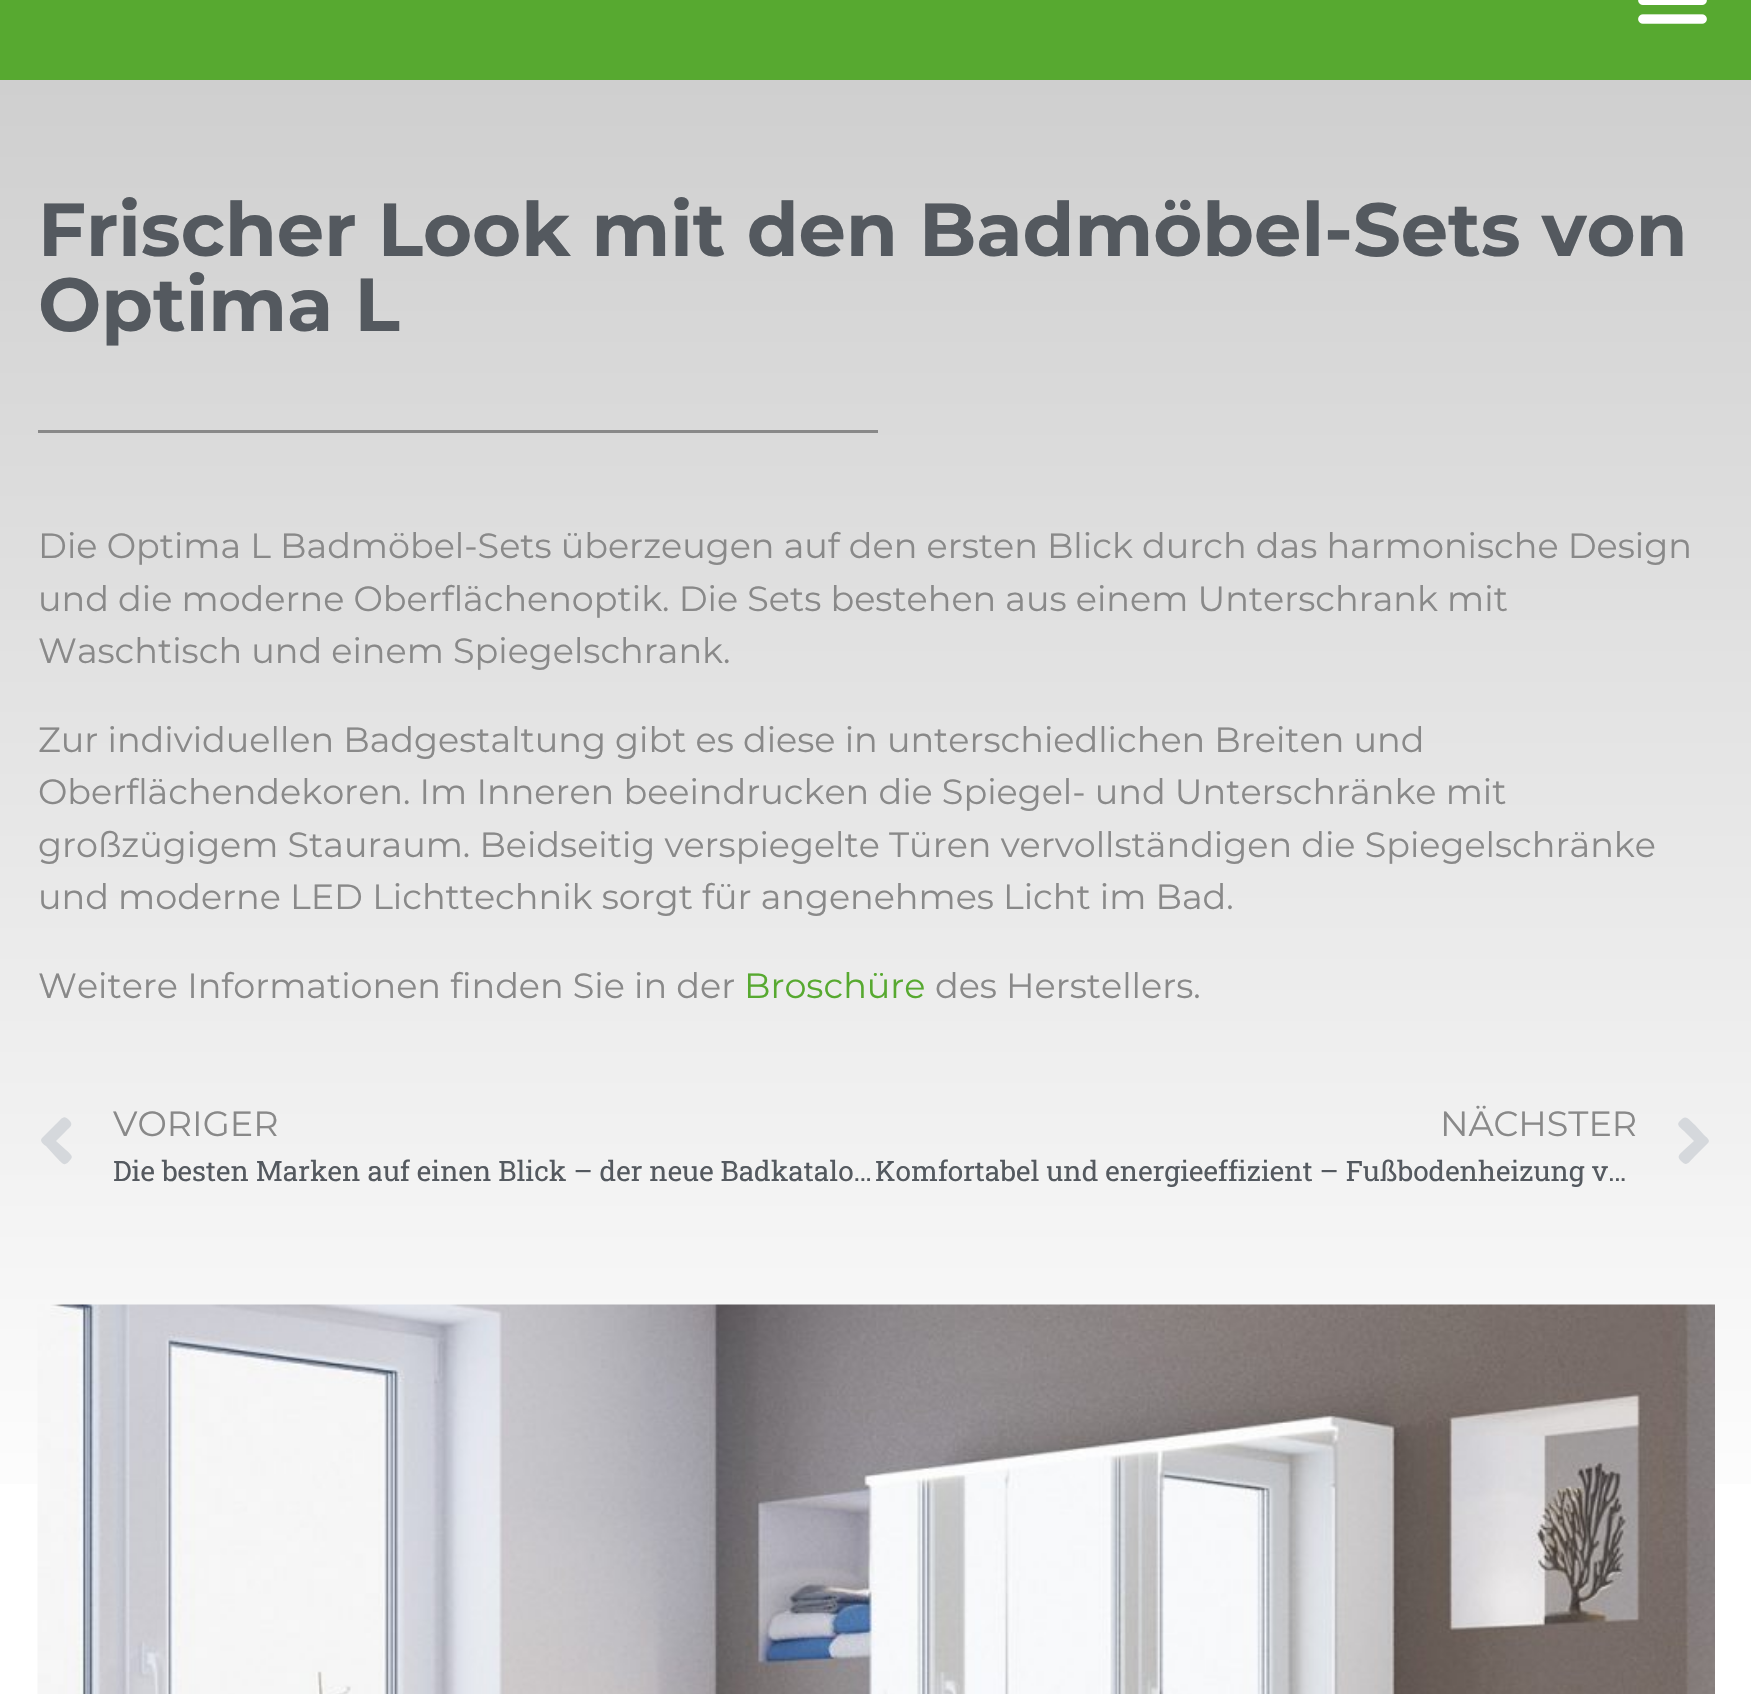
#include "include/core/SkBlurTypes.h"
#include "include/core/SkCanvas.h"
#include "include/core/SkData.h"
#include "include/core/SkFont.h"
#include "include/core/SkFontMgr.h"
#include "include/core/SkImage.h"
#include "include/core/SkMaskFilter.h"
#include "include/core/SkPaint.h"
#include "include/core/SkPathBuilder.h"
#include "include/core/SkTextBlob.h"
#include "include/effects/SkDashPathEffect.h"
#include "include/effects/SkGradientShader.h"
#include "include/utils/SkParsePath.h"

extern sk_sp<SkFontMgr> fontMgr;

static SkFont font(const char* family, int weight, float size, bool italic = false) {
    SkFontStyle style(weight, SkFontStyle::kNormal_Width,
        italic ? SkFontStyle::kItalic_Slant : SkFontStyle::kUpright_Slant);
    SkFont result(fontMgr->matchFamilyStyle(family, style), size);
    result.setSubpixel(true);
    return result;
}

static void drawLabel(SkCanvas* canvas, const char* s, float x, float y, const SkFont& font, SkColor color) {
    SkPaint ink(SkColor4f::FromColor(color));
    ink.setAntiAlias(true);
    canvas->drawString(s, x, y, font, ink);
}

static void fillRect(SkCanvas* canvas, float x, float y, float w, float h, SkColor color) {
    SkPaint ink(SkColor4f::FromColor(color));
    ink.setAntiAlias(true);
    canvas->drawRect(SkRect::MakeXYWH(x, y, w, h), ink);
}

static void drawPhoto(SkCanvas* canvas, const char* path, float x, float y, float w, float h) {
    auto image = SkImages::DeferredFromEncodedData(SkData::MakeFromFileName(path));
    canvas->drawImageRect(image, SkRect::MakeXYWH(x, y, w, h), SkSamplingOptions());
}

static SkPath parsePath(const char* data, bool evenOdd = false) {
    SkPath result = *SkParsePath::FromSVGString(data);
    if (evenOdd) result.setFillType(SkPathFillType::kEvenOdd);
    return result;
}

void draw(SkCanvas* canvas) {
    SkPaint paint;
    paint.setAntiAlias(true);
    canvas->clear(0xFFFFFFFF);
    fillRect(canvas, 0, 0, 1751, 80, 0xFF57A930);
    drawPhoto(canvas, "assets/img1.png", 1638, 0, 69, 24);
    {
        const SkColor colors[] = {0xFFCFCFCF, 0xFFFFFFFF};
        const float stops[] = {0, 0.57f};
        const SkPoint ends[] = {{876, 80}, {876, 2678}};
        paint.setShader(SkGradientShader::MakeLinear(ends, colors, stops, 2, SkTileMode::kClamp));
        paint.setAlpha(255);
    }
    canvas->drawRect(SkRect::MakeXYWH(0, 80, 1751, 1404), paint);
    SkFont font1 = font("Montserrat", 700, 75);
    drawLabel(canvas, "Frischer Look mit den Badmöbel-Sets von", 38, 256, font1, 0xFF54595F);
    drawLabel(canvas, "Optima L", 38, 331, font1, 0xFF54595F);
    fillRect(canvas, 38, 430, 840, 3, 0xFF898989);
    SkFont font2 = font("Montserrat", 400, 35);
    drawLabel(canvas, "Die Optima L Badmöbel-Sets überzeugen auf den ersten Blick durch das harmonische Design", 38, 558, font2, 0xFF898989);
    drawLabel(canvas, "und die moderne Oberflächenoptik. Die Sets bestehen aus einem Unterschrank mit", 38, 611, font2, 0xFF898989);
    drawLabel(canvas, "Waschtisch und einem Spiegelschrank.", 38, 663, font2, 0xFF898989);
    drawLabel(canvas, "Zur individuellen Badgestaltung gibt es diese in unterschiedlichen Breiten und", 38, 752, font2, 0xFF898989);
    drawLabel(canvas, "Oberflächendekoren. Im Inneren beeindrucken die Spiegel- und Unterschränke mit", 38, 804, font2, 0xFF898989);
    drawLabel(canvas, "großzügigem Stauraum. Beidseitig verspiegelte Türen vervollständigen die Spiegelschränke", 38, 857, font2, 0xFF898989);
    drawLabel(canvas, "und moderne LED Lichttechnik sorgt für angenehmes Licht im Bad.", 38, 909, font2, 0xFF898989);
    drawLabel(canvas, "Weitere Informationen finden Sie in der", 38, 998, font2, 0xFF898989);
    drawLabel(canvas, "Broschüre", 744, 998, font2, 0xFF57A930);
    drawLabel(canvas, "des Herstellers.", 935, 998, font2, 0xFF898989);
    paint.setShader(nullptr);
    paint.setColor(0xFFD5D8DC);
    canvas->drawPath(parsePath("M42 1138L55 1125C62 1119 63 1114 69 1120C74 1125 70 1127 66 1131L56 1141L66 1150C68 1152 74 1156 71 1159C64 1168 63 1164 55 1156L46 1146C44 1145 39 1141 42 1138Z"), paint);
    drawLabel(canvas, "VORIGER", 113, 1136, font2, 0xFF898989);
    SkFont font3 = font("Roboto Slab", 400, 28);
    drawLabel(canvas, "Die besten Marken auf einen Blick – der neue Badkatalo…", 113, 1181, font3, 0xFF54595F);
    drawLabel(canvas, "NÄCHSTER", 1440, 1136, font2, 0xFF898989);
    drawLabel(canvas, "Komfortabel und energieeffizient – Fußbodenheizung v…", 875, 1181, font3, 0xFF54595F);
    canvas->drawPath(parsePath("M1708 1143L1695 1156C1688 1163 1687 1167 1681 1161C1676 1156 1680 1154 1684 1150L1694 1141L1684 1131C1682 1129 1676 1125 1679 1122C1686 1114 1687 1118 1695 1125L1704 1135C1706 1137 1711 1140 1708 1143Z"), paint);
    drawPhoto(canvas, "assets/img2.png", 37, 1304, 1678, 390);
}
